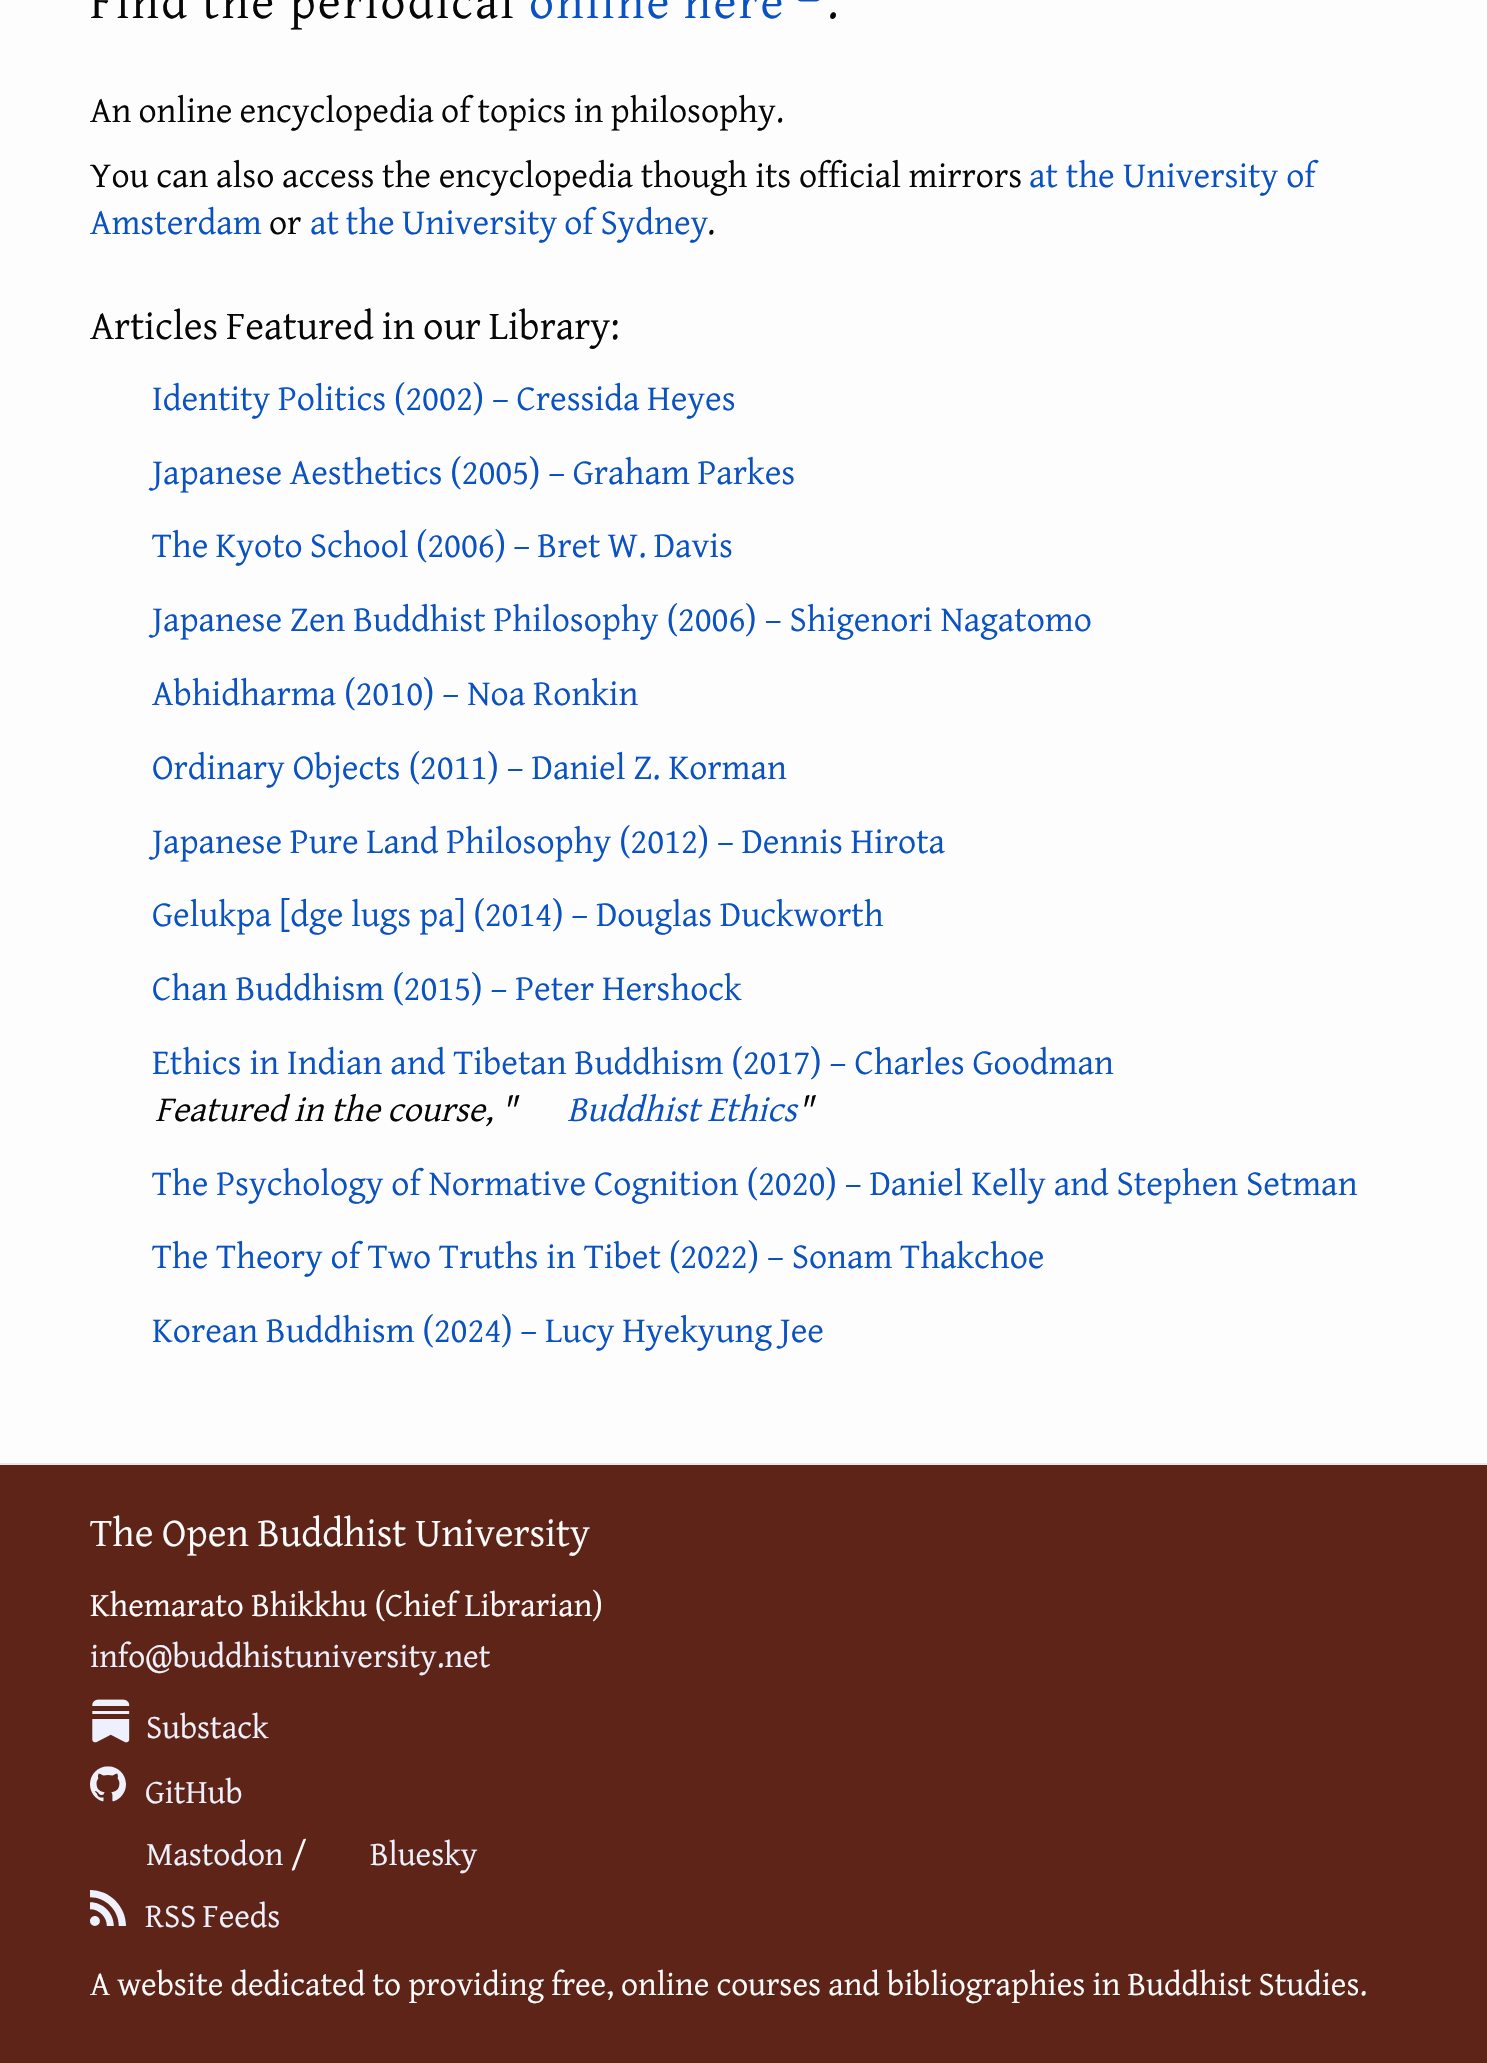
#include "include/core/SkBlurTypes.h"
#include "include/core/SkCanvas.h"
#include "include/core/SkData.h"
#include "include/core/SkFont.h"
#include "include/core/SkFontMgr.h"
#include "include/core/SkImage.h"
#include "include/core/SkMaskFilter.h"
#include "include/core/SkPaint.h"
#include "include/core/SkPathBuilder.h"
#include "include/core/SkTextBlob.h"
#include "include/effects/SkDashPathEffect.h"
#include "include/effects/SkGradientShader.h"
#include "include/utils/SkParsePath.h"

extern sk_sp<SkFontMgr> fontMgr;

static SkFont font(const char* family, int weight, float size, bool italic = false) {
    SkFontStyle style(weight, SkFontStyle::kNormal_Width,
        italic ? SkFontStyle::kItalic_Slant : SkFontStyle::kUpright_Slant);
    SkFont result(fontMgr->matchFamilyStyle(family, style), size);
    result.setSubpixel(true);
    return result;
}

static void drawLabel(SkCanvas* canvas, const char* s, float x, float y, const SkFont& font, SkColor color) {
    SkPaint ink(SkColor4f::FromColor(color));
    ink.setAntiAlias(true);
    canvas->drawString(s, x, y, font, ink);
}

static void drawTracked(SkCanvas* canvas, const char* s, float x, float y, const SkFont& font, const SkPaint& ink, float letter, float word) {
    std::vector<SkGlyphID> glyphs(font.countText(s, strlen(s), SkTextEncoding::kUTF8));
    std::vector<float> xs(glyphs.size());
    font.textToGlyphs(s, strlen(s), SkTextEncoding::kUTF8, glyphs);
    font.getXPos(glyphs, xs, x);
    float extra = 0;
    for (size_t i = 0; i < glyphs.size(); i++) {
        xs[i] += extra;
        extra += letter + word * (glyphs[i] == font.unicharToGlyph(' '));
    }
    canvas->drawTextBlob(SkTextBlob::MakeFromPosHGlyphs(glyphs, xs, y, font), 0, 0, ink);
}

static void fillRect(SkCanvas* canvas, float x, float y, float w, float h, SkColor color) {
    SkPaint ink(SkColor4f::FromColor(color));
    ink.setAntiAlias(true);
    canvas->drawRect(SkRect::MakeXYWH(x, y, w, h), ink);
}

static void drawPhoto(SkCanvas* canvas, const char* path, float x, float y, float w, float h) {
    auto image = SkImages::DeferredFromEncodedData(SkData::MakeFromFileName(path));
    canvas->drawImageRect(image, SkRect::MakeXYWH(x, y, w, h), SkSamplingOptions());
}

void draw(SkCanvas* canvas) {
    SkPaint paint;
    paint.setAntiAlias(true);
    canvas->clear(0xFFFDFDFD);
    SkFont font1 = font("Gentium Plus", 400, 49.5f);
    paint.setColor(0xFF070707);
    drawTracked(canvas, "Find the periodical", 90, 18, font1, paint, 2.25f, 0);
    paint.setColor(0xFF0A51C2);
    drawTracked(canvas, "online here", 529, 18, font1, paint, 2.25f, -1);
    drawPhoto(canvas, "assets/img1.png", 797, 0, 23, 2);
    paint.setColor(0xFF070707);
    drawTracked(canvas, ".", 827, 18, font1, paint, 2.25f, 0);
    SkFont font2 = font("Gentium Plus", 400, 36);
    drawTracked(canvas, "An online encyclopedia of topics in philosophy.", 90, 122, font2, paint, 0, -0.75f);
    drawTracked(canvas, "You can also access the encyclopedia though its official mirrors", 90, 187, font2, paint, 0, -0.25f);
    drawLabel(canvas, "at the University of", 1029, 187, font2, 0xFF0A51C2);
    drawLabel(canvas, "Amsterdam", 90, 234, font2, 0xFF0A51C2);
    drawLabel(canvas, "or", 269, 234, font2, 0xFF070707);
    paint.setColor(0xFF0A51C2);
    drawTracked(canvas, "at the University of Sydney", 310, 234, font2, paint, 0, -1);
    drawLabel(canvas, ".", 707, 234, font2, 0xFF070707);
    SkFont font3 = font("Gentium Plus", 400, 40.5f);
    paint.setColor(0xFF070707);
    drawTracked(canvas, "Articles Featured in our Library:", 90, 339, font3, paint, 0, -1);
    paint.setColor(0xFF0A51C2);
    drawTracked(canvas, "Identity Politics (2002) – Cressida Heyes", 152, 410, font2, paint, 0, -0.25f);
    drawTracked(canvas, "Japanese Aesthetics (2005) – Graham Parkes", 152, 484, font2, paint, 0, -0.25f);
    drawTracked(canvas, "The Kyoto School (2006) – Bret W. Davis", 152, 557, font2, paint, 0, -0.75f);
    drawLabel(canvas, "Japanese Zen Buddhist Philosophy (2006) – Shigenori Nagatomo", 152, 631, font2, 0xFF0A51C2);
    drawLabel(canvas, "Abhidharma (2010) – Noa Ronkin", 152, 705, font2, 0xFF0A51C2);
    drawLabel(canvas, "Ordinary Objects (2011) – Daniel Z. Korman", 152, 779, font2, 0xFF0A51C2);
    drawTracked(canvas, "Japanese Pure Land Philosophy (2012) – Dennis Hirota", 152, 853, font2, paint, 0, -0.25f);
    drawTracked(canvas, "Gelukpa [dge lugs pa] (2014) – Douglas Duckworth", 152, 926, font2, paint, 0, -0.25f);
    drawLabel(canvas, "Chan Buddhism (2015) – Peter Hershock", 152, 1000, font2, 0xFF0A51C2);
    drawLabel(canvas, "Ethics in Indian and Tibetan Buddhism (2017) – Charles Goodman", 152, 1074, font2, 0xFF0A51C2);
    SkFont font4 = font("Gentium Plus", 400, 36, true);
    paint.setColor(0xFF070707);
    drawTracked(canvas, "Featured in the course, \"", 155, 1121, font4, paint, 0, -0.5f);
    drawLabel(canvas, "Buddhist Ethics", 567, 1121, font4, 0xFF0A51C2);
    drawLabel(canvas, "\"", 797, 1121, font4, 0xFF070707);
    paint.setColor(0xFF0A51C2);
    drawTracked(canvas, "The Psychology of Normative Cognition (2020) – Daniel Kelly and Stephen Setman", 152, 1195, font2, paint, 0, -0.1f);
    drawLabel(canvas, "The Theory of Two Truths in Tibet (2022) – Sonam Thakchoe", 152, 1268, font2, 0xFF0A51C2);
    drawTracked(canvas, "Korean Buddhism (2024) – Lucy Hyekyung Jee", 152, 1342, font2, paint, 0, -0.25f);
    fillRect(canvas, 0, 1465, 1487, 598, 0xFF5E2417);
    fillRect(canvas, 0, 1463, 1487, 2, 0xFFE8E8E8);
    paint.setColor(0xFFFDFDFD);
    drawTracked(canvas, "The Open Buddhist University", 90, 1546, font3, paint, 0, -0.25f);
    SkFont font5 = font("Gentium Plus", 400, 33.75f);
    drawLabel(canvas, "Khemarato Bhikkhu (Chief Librarian)", 90, 1616, font5, 0xFFFDFDFD);
    drawLabel(canvas, "info@buddhistuniversity.net", 90, 1667, font5, 0xFFEEF0FC);
    drawPhoto(canvas, "assets/img2.png", 92, 1699, 38, 44);
    paint.setStroke(true);
    paint.setStrokeWidth(5);
    paint.setColor(0xFF5E2417);
    canvas->drawRect(SkRect::MakeXYWH(83.5f, 1708.5f, 56, 8), paint);
    drawLabel(canvas, "Substack", 146, 1738, font5, 0xFFEEF0FC);
    drawPhoto(canvas, "assets/img3.png", 90, 1766, 36, 36);
    drawLabel(canvas, "GitHub", 145, 1803, font5, 0xFFEEF0FC);
    drawLabel(canvas, "Mastodon", 146, 1865, font5, 0xFFEEF0FC);
    drawLabel(canvas, "/", 291, 1865, font5, 0xFFFDFDFD);
    drawLabel(canvas, "Bluesky", 370, 1865, font5, 0xFFEEF0FC);
    drawPhoto(canvas, "assets/img4.png", 90, 1890, 36, 36);
    paint.setStroke(false);
    paint.setColor(0xFFEEF0FC);
    drawTracked(canvas, "RSS Feeds", 145, 1927, font5, paint, 0, -1);
    paint.setColor(0xFFFDFDFD);
    drawTracked(canvas, "A website dedicated to providing free, online courses and bibliographies in Buddhist Studies.", 90, 1995, font5, paint, 0, -0.25f);
}
